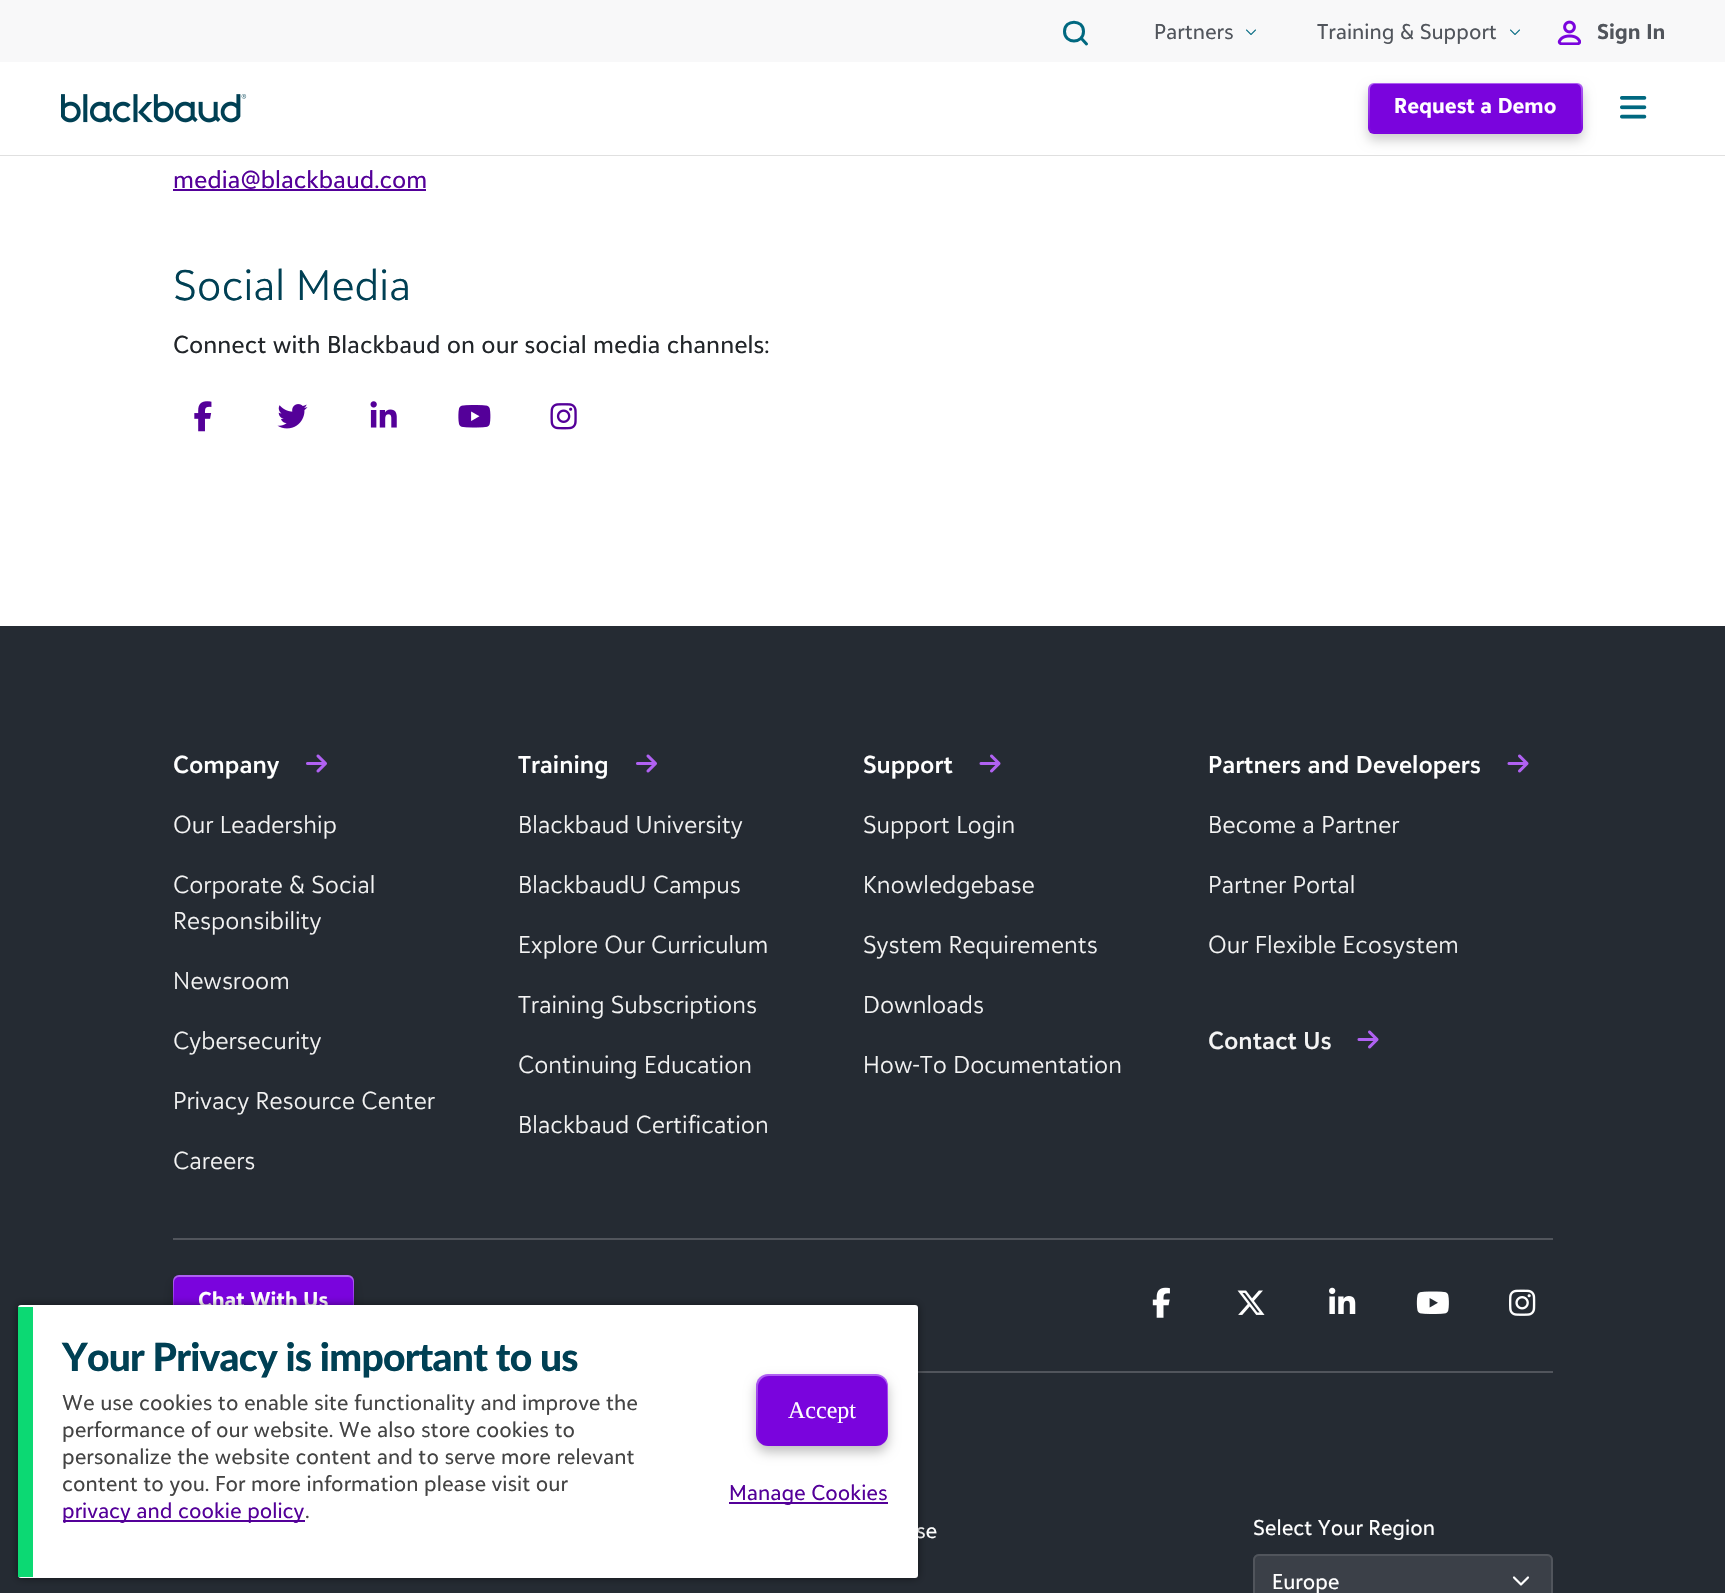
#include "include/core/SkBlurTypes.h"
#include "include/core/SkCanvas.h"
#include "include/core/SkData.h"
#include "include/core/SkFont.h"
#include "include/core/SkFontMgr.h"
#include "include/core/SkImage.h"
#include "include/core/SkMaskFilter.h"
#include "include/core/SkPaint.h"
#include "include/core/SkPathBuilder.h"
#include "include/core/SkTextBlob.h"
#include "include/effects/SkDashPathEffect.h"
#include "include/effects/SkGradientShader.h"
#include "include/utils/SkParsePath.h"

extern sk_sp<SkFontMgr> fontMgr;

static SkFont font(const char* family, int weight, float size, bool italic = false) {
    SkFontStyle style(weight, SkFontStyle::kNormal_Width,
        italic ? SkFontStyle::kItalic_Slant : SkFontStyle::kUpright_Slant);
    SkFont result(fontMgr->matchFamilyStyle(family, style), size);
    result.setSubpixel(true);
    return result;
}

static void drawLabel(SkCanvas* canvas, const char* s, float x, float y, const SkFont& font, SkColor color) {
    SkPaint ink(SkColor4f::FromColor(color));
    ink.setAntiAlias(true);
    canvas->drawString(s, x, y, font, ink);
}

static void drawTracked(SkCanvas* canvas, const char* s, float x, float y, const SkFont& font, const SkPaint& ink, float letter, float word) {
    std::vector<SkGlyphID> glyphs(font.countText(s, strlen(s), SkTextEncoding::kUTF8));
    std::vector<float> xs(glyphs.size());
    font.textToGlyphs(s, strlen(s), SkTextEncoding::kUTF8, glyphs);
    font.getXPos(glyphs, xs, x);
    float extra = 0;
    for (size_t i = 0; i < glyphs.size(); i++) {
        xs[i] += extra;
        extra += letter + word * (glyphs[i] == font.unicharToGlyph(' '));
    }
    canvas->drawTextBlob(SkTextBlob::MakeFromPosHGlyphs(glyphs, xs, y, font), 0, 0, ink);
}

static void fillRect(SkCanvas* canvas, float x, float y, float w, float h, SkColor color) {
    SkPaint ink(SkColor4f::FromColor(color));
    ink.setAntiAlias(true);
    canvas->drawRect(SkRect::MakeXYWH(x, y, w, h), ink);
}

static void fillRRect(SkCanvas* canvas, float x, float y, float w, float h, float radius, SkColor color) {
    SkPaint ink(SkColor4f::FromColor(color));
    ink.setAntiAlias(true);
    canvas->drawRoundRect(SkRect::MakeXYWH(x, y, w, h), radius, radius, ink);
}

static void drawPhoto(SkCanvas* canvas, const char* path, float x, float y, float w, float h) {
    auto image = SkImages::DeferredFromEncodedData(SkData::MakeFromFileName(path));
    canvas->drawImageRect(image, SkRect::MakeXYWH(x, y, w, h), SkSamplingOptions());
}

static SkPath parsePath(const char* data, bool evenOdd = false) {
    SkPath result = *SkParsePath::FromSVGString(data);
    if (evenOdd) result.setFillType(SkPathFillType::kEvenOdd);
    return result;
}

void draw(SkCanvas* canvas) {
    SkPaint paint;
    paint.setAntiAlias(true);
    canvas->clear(0xFFFFFFFF);
    fillRect(canvas, 0, 155, 1725, 1, 0xFFE0E0E0);
    fillRect(canvas, 0, 0, 1725, 62, 0xFFF8F8F9);
    paint.setStroke(true);
    paint.setStrokeWidth(3);
    paint.setStrokeCap(SkPaint::kRound_Cap);
    paint.setStrokeJoin(SkPaint::kRound_Join);
    paint.setColor(0xFF006880);
    canvas->drawPath(parsePath("M1086.5 44L1081 38ZM1064.5 31.5C1064.5 19 1083.5 19 1083.5 31.5C1083.5 44 1064.5 44 1064.5 31.5Z"), paint);
    SkFont font1 = font("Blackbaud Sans", 900, 21);
    drawLabel(canvas, "Partners", 1154, 39, font1, 0xFF51555C);
    drawPhoto(canvas, "assets/img1.png", 1246, 29, 10, 6);
    drawLabel(canvas, "Training & Support", 1317, 39, font1, 0xFF51555C);
    drawPhoto(canvas, "assets/img1.png", 1510, 29, 10, 6);
    drawPhoto(canvas, "assets/img2.png", 1557, 20, 24, 25);
    SkFont font2 = font("Blackbaud Sans", 700, 21);
    drawLabel(canvas, "Sign In", 1597, 39, font2, 0xFF51555C);
    drawPhoto(canvas, "assets/img3.png", 61, 94, 186, 29);
    paint.setStroke(false);
    paint.setColor(0x33000000);
    paint.setMaskFilter(SkMaskFilter::MakeBlur(kNormal_SkBlurStyle, 6));
    canvas->drawRoundRect(SkRect::MakeXYWH(1368, 89, 215, 51), 6, 6, paint);
    paint.setMaskFilter(nullptr);
    {
        const SkColor colors[] = {0xFFB061F2, 0xFF7A04DD};
        const float stops[] = {0, 1};
        const SkPoint ends[] = {{1475, 82}, {1475, 134}};
        paint.setShader(SkGradientShader::MakeLinear(ends, colors, stops, 2, SkTileMode::kClamp));
        paint.setAlpha(255);
    }
    canvas->drawRoundRect(SkRect::MakeXYWH(1368, 83, 215, 51), 6, 6, paint);
    fillRRect(canvas, 1370, 84, 211, 48, 5, 0xFF7A04DD);
    drawLabel(canvas, "Request a Demo", 1394, 113, font2, 0xFFFFFFFF);
    drawPhoto(canvas, "assets/img4.png", 1620, 96, 27, 23);
    SkFont font3 = font("Blackbaud Sans", 900, 24);
    drawLabel(canvas, "media@blackbaud.com", 173, 188, font3, 0xFF540099);
    fillRect(canvas, 173, 189, 253, 2, 0xFF540099);
    SkFont font4 = font("Blackbaud Sans", 300, 42);
    drawLabel(canvas, "Social Media", 173, 300, font4, 0xFF004054);
    drawLabel(canvas, "Connect with Blackbaud on our social media channels:", 173, 353, font3, 0xFF212529);
    drawPhoto(canvas, "assets/img5.png", 194, 401, 18, 31);
    drawPhoto(canvas, "assets/img6.png", 277, 404, 31, 25);
    drawPhoto(canvas, "assets/img7.png", 370, 401, 27, 27);
    drawPhoto(canvas, "assets/img8.png", 458, 405, 33, 23);
    drawPhoto(canvas, "assets/img9.png", 550, 403, 27, 27);
    fillRect(canvas, 0, 626, 1725, 967, 0xFF252B33);
    SkFont font5 = font("Blackbaud Sans", 600, 24);
    drawLabel(canvas, "Company", 173, 773, font5, 0xFFFFFFFF);
    drawPhoto(canvas, "assets/img10.png", 306, 754, 21, 19);
    SkFont font6 = font("Blackbaud Sans", 300, 24);
    drawLabel(canvas, "Our Leadership", 173, 833, font6, 0xFFF4F4F4);
    drawLabel(canvas, "Corporate & Social", 173, 893, font6, 0xFFF4F4F4);
    drawLabel(canvas, "Responsibility", 173, 929, font6, 0xFFF4F4F4);
    drawLabel(canvas, "Newsroom", 173, 989, font6, 0xFFF4F4F4);
    drawLabel(canvas, "Cybersecurity", 173, 1049, font6, 0xFFF4F4F4);
    drawLabel(canvas, "Privacy Resource Center", 173, 1109, font6, 0xFFF4F4F4);
    drawLabel(canvas, "Careers", 173, 1169, font6, 0xFFF4F4F4);
    drawLabel(canvas, "Training", 518, 773, font5, 0xFFFFFFFF);
    drawPhoto(canvas, "assets/img10.png", 636, 754, 21, 19);
    drawLabel(canvas, "Blackbaud University", 518, 833, font6, 0xFFF4F4F4);
    drawLabel(canvas, "BlackbaudU Campus", 518, 893, font6, 0xFFF4F4F4);
    drawLabel(canvas, "Explore Our Curriculum", 518, 953, font6, 0xFFF4F4F4);
    drawLabel(canvas, "Training Subscriptions", 518, 1013, font6, 0xFFF4F4F4);
    drawLabel(canvas, "Continuing Education", 518, 1073, font6, 0xFFF4F4F4);
    drawLabel(canvas, "Blackbaud Certification", 518, 1133, font6, 0xFFF4F4F4);
    drawLabel(canvas, "Support", 863, 773, font5, 0xFFFFFFFF);
    drawPhoto(canvas, "assets/img11.png", 979, 754, 22, 19);
    drawLabel(canvas, "Support Login", 863, 833, font6, 0xFFF4F4F4);
    drawLabel(canvas, "Knowledgebase", 863, 893, font6, 0xFFF4F4F4);
    drawLabel(canvas, "System Requirements", 863, 953, font6, 0xFFF4F4F4);
    drawLabel(canvas, "Downloads", 863, 1013, font6, 0xFFF4F4F4);
    drawLabel(canvas, "How-To Documentation", 863, 1073, font6, 0xFFF4F4F4);
    drawLabel(canvas, "Partners and Developers", 1208, 773, font5, 0xFFFFFFFF);
    drawPhoto(canvas, "assets/img11.png", 1507, 754, 22, 19);
    drawLabel(canvas, "Become a Partner", 1208, 833, font6, 0xFFF4F4F4);
    drawLabel(canvas, "Partner Portal", 1208, 893, font6, 0xFFF4F4F4);
    drawLabel(canvas, "Our Flexible Ecosystem", 1208, 953, font6, 0xFFF4F4F4);
    drawLabel(canvas, "Contact Us", 1208, 1049, font5, 0xFFF4F4F4);
    drawPhoto(canvas, "assets/img11.png", 1357, 1030, 22, 19);
    fillRect(canvas, 173, 1238, 1380, 2, 0xFF51555C);
    paint.setShader(nullptr);
    paint.setColor(0x33000000);
    paint.setMaskFilter(SkMaskFilter::MakeBlur(kNormal_SkBlurStyle, 6));
    canvas->drawRoundRect(SkRect::MakeXYWH(173, 1281, 181, 51), 6, 6, paint);
    paint.setMaskFilter(nullptr);
    {
        const SkColor colors[] = {0xFFB061F2, 0xFF7A04DD};
        const float stops[] = {0, 1};
        const SkPoint ends[] = {{263, 1275}, {263, 1326}};
        paint.setShader(SkGradientShader::MakeLinear(ends, colors, stops, 2, SkTileMode::kClamp));
        paint.setAlpha(255);
    }
    canvas->drawRoundRect(SkRect::MakeXYWH(173, 1275, 181, 51), 6, 6, paint);
    fillRRect(canvas, 174, 1277, 179, 48, 5, 0xFF7A04DD);
    drawLabel(canvas, "Chat With Us", 198, 1307, font2, 0xFFFFFFFF);
    drawPhoto(canvas, "assets/img12.png", 1152, 1287, 18, 31);
    drawPhoto(canvas, "assets/img13.png", 1237, 1290, 28, 25);
    drawPhoto(canvas, "assets/img14.png", 1329, 1287, 27, 27);
    drawPhoto(canvas, "assets/img15.png", 1416, 1291, 33, 23);
    drawPhoto(canvas, "assets/img16.png", 1509, 1289, 27, 27);
    fillRect(canvas, 918, 1371, 635, 2, 0xFF51555C);
    drawLabel(canvas, "se", 916, 1538, font1, 0xFFFFFFFF);
    drawLabel(canvas, "Select Your Region", 1253, 1535, font1, 0xFFFFFFFF);
    fillRRect(canvas, 1253, 1554, 300, 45, 6, 0xFF3B4048);
    paint.setStroke(true);
    paint.setStrokeWidth(2.2f);
    paint.setShader(nullptr);
    paint.setColor(0xFFFFFFFF);
    canvas->drawPath(parsePath("M1514 1577.5L1521 1584.5L1528 1577.5"), paint);
    paint.setStrokeWidth(2);
    paint.setStrokeCap(SkPaint::kButt_Cap);
    paint.setStrokeJoin(SkPaint::kMiter_Join);
    paint.setColor(0xFF51555C);
    canvas->drawRoundRect(SkRect::MakeXYWH(1254, 1555, 298, 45), 5, 5, paint);
    drawLabel(canvas, "Europe", 1272, 1589, font1, 0xFFFFFFFF);
    paint.setStroke(false);
    paint.setColor(0x80000000);
    paint.setMaskFilter(SkMaskFilter::MakeBlur(kNormal_SkBlurStyle, 4));
    canvas->drawRoundRect(SkRect::MakeXYWH(18, 1305, 900, 273), 3, 3, paint);
    paint.setMaskFilter(nullptr);
    fillRRect(canvas, 18, 1305, 900, 273, 3, 0xFFFFFFFF);
    fillRect(canvas, 18, 1307, 15, 270, 0xFF0CD973);
    SkFont font7 = font("Lato", 900, 39);
    paint.setColor(0xFF004054);
    drawTracked(canvas, "Your Privacy is important to us", 62, 1371, font7, paint, -0.75f, 0);
    drawLabel(canvas, "We use cookies to enable site functionality and improve the", 62, 1410, font1, 0xFF444444);
    drawLabel(canvas, "performance of our website. We also store cookies to", 62, 1437, font1, 0xFF444444);
    drawLabel(canvas, "personalize the website content and to serve more relevant", 62, 1464, font1, 0xFF444444);
    drawLabel(canvas, "content to you. For more information please visit our", 62, 1491, font1, 0xFF444444);
    fillRect(canvas, 63, 1520, 242, 2, 0xFF540099);
    drawLabel(canvas, "privacy and cookie policy", 62, 1518, font1, 0xFF540099);
    drawLabel(canvas, ".", 305, 1518, font1, 0xFF444444);
    paint.setColor(0x40000000);
    paint.setMaskFilter(SkMaskFilter::MakeBlur(kNormal_SkBlurStyle, 6));
    canvas->drawRoundRect(SkRect::MakeXYWH(756, 1380, 132, 72), 12, 12, paint);
    paint.setMaskFilter(nullptr);
    {
        const SkColor colors[] = {0xFFB061F2, 0xFF7A04DD};
        const float stops[] = {0, 1};
        const SkPoint ends[] = {{822, 1374}, {822, 1446}};
        paint.setShader(SkGradientShader::MakeLinear(ends, colors, stops, 2, SkTileMode::kClamp));
        paint.setAlpha(255);
    }
    canvas->drawRoundRect(SkRect::MakeXYWH(756, 1374, 132, 72), 12, 12, paint);
    fillRRect(canvas, 758, 1376, 129, 69, 11, 0xFF7A04DD);
    SkFont font8 = font("Liberation Serif", 400, 24);
    drawLabel(canvas, "Accept", 788, 1418, font8, 0xFFFFFFFF);
    fillRect(canvas, 729, 1502, 159, 2, 0xFF540099);
    drawLabel(canvas, "Manage Cookies", 729, 1500, font1, 0xFF540099);
}
